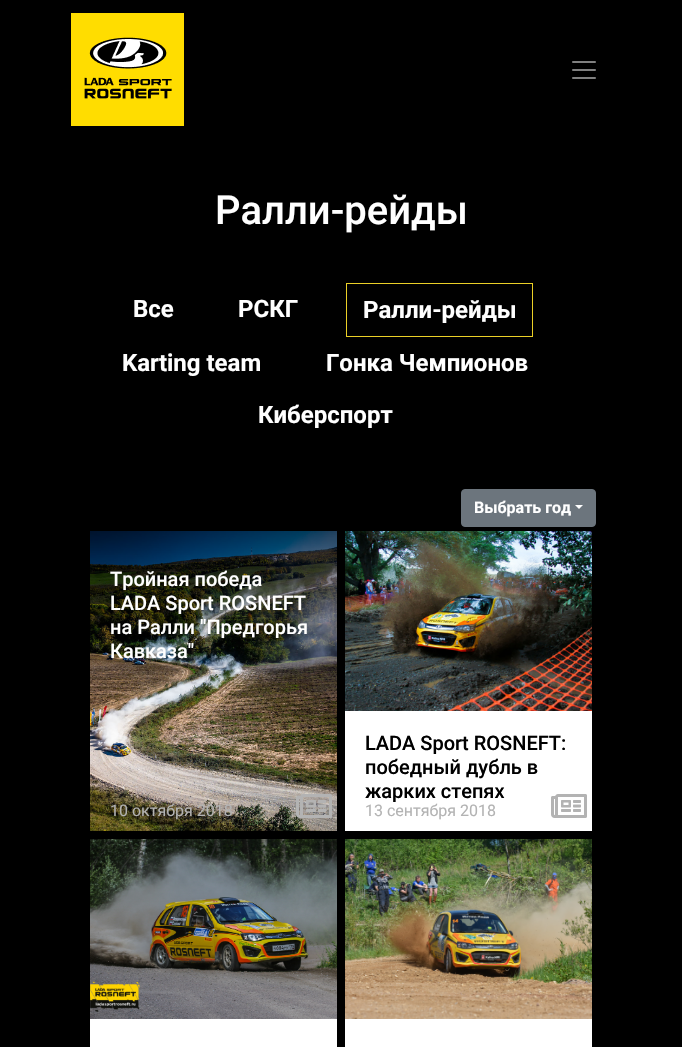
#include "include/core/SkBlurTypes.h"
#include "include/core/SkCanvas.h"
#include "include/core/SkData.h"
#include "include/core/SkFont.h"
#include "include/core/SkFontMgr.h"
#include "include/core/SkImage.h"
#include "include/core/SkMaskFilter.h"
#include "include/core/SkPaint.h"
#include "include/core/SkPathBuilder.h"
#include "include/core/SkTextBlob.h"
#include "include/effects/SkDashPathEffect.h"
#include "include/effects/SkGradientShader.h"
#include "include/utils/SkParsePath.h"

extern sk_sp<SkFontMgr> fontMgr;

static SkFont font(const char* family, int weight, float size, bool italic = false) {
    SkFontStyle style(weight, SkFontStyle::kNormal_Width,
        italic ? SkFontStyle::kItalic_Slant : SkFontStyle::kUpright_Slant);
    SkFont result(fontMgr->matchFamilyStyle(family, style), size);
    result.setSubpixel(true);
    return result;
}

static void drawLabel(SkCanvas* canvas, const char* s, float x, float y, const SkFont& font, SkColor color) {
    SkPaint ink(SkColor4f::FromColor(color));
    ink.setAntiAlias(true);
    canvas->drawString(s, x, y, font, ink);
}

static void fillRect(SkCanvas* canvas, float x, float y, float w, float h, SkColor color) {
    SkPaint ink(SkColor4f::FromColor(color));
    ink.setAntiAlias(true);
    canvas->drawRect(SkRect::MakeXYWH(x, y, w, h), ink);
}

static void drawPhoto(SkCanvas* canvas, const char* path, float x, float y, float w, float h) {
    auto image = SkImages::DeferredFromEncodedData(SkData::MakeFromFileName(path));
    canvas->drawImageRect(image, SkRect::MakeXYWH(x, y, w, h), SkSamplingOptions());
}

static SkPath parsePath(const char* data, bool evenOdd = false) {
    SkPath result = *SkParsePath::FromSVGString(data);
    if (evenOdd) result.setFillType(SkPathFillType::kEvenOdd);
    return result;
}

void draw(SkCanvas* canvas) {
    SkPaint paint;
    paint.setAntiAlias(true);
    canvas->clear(0xFF000000);
    drawPhoto(canvas, "assets/img1.png", 71, 13, 113, 113);
    drawPhoto(canvas, "assets/img2.png", 572, 61, 24, 18);
    SkFont font1 = font("Roboto", 500, 40);
    drawLabel(canvas, "Ралли-рейды", 215, 224, font1, 0xFFFFFFFF);
    SkFont font2 = font("Roboto", 700, 24);
    drawLabel(canvas, "Все", 133, 317, font2, 0xFFFFFFFF);
    drawLabel(canvas, "РСКГ", 238, 317, font2, 0xFFFFFFFF);
    paint.setStroke(true);
    paint.setStrokeWidth(1);
    paint.setColor(0xFFEBD027);
    canvas->drawRect(SkRect::MakeXYWH(346.5f, 283.5f, 186, 53), paint);
    drawLabel(canvas, "Ралли-рейды", 363, 318, font2, 0xFFFFFFFF);
    drawLabel(canvas, "Karting team", 122, 371, font2, 0xFFFFFFFF);
    drawLabel(canvas, "Гонка Чемпионов", 326, 371, font2, 0xFFFFFFFF);
    drawLabel(canvas, "Киберспорт", 258, 423, font2, 0xFFFFFFFF);
    paint.setStroke(false);
    paint.setColor(0xFF6C757D);
    canvas->drawRoundRect(SkRect::MakeXYWH(461.5f, 489.5f, 134, 37), 3.5f, 3.5f, paint);
    paint.setStroke(true);
    canvas->drawRoundRect(SkRect::MakeXYWH(461.5f, 489.5f, 134, 37), 3.5f, 3.5f, paint);
    SkFont font3 = font("Roboto", 700, 16);
    drawLabel(canvas, "Выбрать год", 474, 513, font3, 0xFFFFFFFF);
    paint.setStroke(false);
    paint.setColor(0xFFFFFFFF);
    canvas->drawPath(parsePath("M575 505H583L579 509Z"), paint);
    drawPhoto(canvas, "assets/img3.png", 90, 531, 247, 300);
    SkFont font4 = font("Roboto", 500, 20);
    drawLabel(canvas, "Тройная победа", 110, 586, font4, 0xFFFFFFFF);
    drawLabel(canvas, "LADA Sport ROSNEFT", 110, 610, font4, 0xFFFFFFFF);
    drawLabel(canvas, "на Ралли \"Предгорья", 110, 634, font4, 0xFFFFFFFF);
    drawLabel(canvas, "Кавказа\"", 110, 658, font4, 0xFFFFFFFF);
    SkFont font5 = font("Roboto", 400, 16);
    drawLabel(canvas, "10 октября 2018", 110, 816, font5, 0xFFB3B3B3);
    drawPhoto(canvas, "assets/img4.png", 296, 794, 36, 24);
    fillRect(canvas, 345, 711, 247, 120, 0xFFFFFFFF);
    drawPhoto(canvas, "assets/img5.png", 345, 531, 247, 180);
    drawLabel(canvas, "LADA Sport ROSNEFT:", 365, 750, font4, 0xFF000000);
    drawLabel(canvas, "победный дубль в", 365, 774, font4, 0xFF000000);
    drawLabel(canvas, "жарких степях", 365, 798, font4, 0xFF000000);
    drawLabel(canvas, "13 сентября 2018", 365, 816, font5, 0xFFB3B3B3);
    drawPhoto(canvas, "assets/img6.png", 551, 794, 36, 24);
    fillRect(canvas, 90, 1019, 247, 28, 0xFFFFFFFF);
    drawPhoto(canvas, "assets/img7.png", 90, 839, 247, 180);
    fillRect(canvas, 345, 1019, 247, 28, 0xFFFFFFFF);
    drawPhoto(canvas, "assets/img8.png", 345, 839, 247, 180);
}
